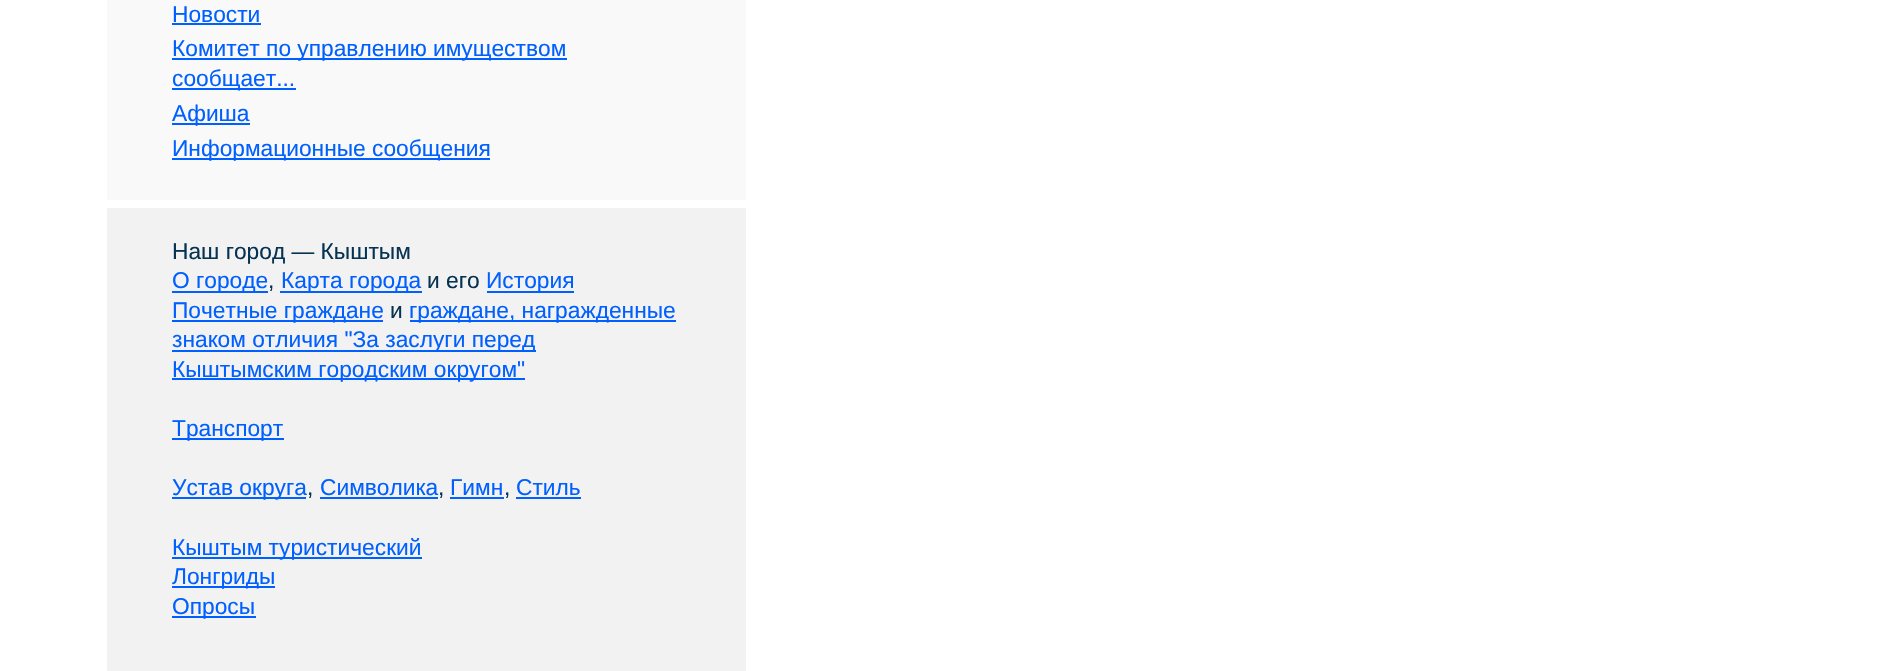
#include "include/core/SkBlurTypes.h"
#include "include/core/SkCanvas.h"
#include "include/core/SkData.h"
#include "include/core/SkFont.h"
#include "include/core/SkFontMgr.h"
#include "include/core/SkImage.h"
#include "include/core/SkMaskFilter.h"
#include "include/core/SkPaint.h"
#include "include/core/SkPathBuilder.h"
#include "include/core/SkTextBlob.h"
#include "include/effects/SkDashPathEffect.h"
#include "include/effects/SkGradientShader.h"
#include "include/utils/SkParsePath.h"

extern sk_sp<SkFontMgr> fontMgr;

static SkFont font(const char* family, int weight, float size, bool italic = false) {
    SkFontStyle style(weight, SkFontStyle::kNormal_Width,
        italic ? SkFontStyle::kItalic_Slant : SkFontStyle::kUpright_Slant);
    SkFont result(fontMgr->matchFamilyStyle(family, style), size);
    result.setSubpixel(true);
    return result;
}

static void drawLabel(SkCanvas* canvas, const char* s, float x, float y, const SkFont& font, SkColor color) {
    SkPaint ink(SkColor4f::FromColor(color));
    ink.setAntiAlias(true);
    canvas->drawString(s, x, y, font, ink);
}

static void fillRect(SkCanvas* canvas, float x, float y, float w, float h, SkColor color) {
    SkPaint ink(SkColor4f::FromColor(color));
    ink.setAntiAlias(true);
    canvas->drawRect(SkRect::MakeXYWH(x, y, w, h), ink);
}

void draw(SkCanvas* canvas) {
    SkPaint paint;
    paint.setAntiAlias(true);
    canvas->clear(0xFFFFFFFF);
    fillRect(canvas, 107, 208, 639, 463, 0xFFF2F2F2);
    fillRect(canvas, 107, 0, 639, 200, 0xFFF9F9F9);
    SkFont font1 = font("Liberation Sans", 400, 22.75f);
    drawLabel(canvas, "Новости", 172, 22, font1, 0xFF0060FF);
    fillRect(canvas, 172, 23, 89, 2, 0xFF0060FF);
    fillRect(canvas, 172, 58, 395, 2, 0xFF0060FF);
    drawLabel(canvas, "Комитет по управлению имуществом", 172, 56, font1, 0xFF0060FF);
    fillRect(canvas, 172, 88, 124, 2, 0xFF0060FF);
    drawLabel(canvas, "сообщает...", 172, 86, font1, 0xFF0060FF);
    fillRect(canvas, 172, 123, 78, 2, 0xFF0060FF);
    drawLabel(canvas, "Афиша", 172, 121, font1, 0xFF0060FF);
    fillRect(canvas, 172, 158, 318, 2, 0xFF0060FF);
    drawLabel(canvas, "Информационные сообщения", 172, 156, font1, 0xFF0060FF);
    drawLabel(canvas, "Наш город — Кыштым", 172, 259, font1, 0xFF063352);
    fillRect(canvas, 172, 291, 96, 2, 0xFF0060FF);
    drawLabel(canvas, "О городе", 172, 288, font1, 0xFF0060FF);
    drawLabel(canvas, ",", 268, 288, font1, 0xFF063352);
    fillRect(canvas, 280, 291, 142, 2, 0xFF0060FF);
    drawLabel(canvas, "Карта города", 281, 288, font1, 0xFF0060FF);
    drawLabel(canvas, "и его", 427, 288, font1, 0xFF063352);
    fillRect(canvas, 487, 291, 87, 2, 0xFF0060FF);
    drawLabel(canvas, "История", 486, 288, font1, 0xFF0060FF);
    fillRect(canvas, 172, 320, 211, 2, 0xFF0060FF);
    drawLabel(canvas, "Почетные граждане", 172, 318, font1, 0xFF0060FF);
    drawLabel(canvas, "и", 390, 318, font1, 0xFF063352);
    fillRect(canvas, 410, 320, 266, 2, 0xFF0060FF);
    drawLabel(canvas, "граждане, награжденные", 409, 318, font1, 0xFF0060FF);
    fillRect(canvas, 172, 350, 364, 2, 0xFF0060FF);
    drawLabel(canvas, "знаком отличия \"За заслуги перед", 172, 347, font1, 0xFF0060FF);
    fillRect(canvas, 172, 378, 353, 2, 0xFF0060FF);
    drawLabel(canvas, "Кыштымским городским округом\"", 172, 377, font1, 0xFF0060FF);
    fillRect(canvas, 172, 438, 112, 2, 0xFF0060FF);
    drawLabel(canvas, "Транспорт", 172, 436, font1, 0xFF0060FF);
    fillRect(canvas, 172, 497, 134, 2, 0xFF0060FF);
    drawLabel(canvas, "Устав округа", 172, 495, font1, 0xFF0060FF);
    drawLabel(canvas, ",", 307, 495, font1, 0xFF063352);
    drawLabel(canvas, "Символика", 320, 495, font1, 0xFF0060FF);
    fillRect(canvas, 320, 497, 118, 2, 0xFF0060FF);
    drawLabel(canvas, ",", 438, 495, font1, 0xFF063352);
    drawLabel(canvas, "Гимн", 450, 495, font1, 0xFF0060FF);
    fillRect(canvas, 450, 497, 54, 2, 0xFF0060FF);
    drawLabel(canvas, ",", 504, 495, font1, 0xFF063352);
    drawLabel(canvas, "Стиль", 516, 495, font1, 0xFF0060FF);
    fillRect(canvas, 516, 497, 65, 2, 0xFF0060FF);
    fillRect(canvas, 172, 557, 250, 2, 0xFF0060FF);
    drawLabel(canvas, "Кыштым туристический", 172, 555, font1, 0xFF0060FF);
    fillRect(canvas, 172, 586, 103, 2, 0xFF0060FF);
    drawLabel(canvas, "Лонгриды", 172, 584, font1, 0xFF0060FF);
    fillRect(canvas, 172, 616, 84, 2, 0xFF0060FF);
    drawLabel(canvas, "Опросы", 172, 614, font1, 0xFF0060FF);
}
